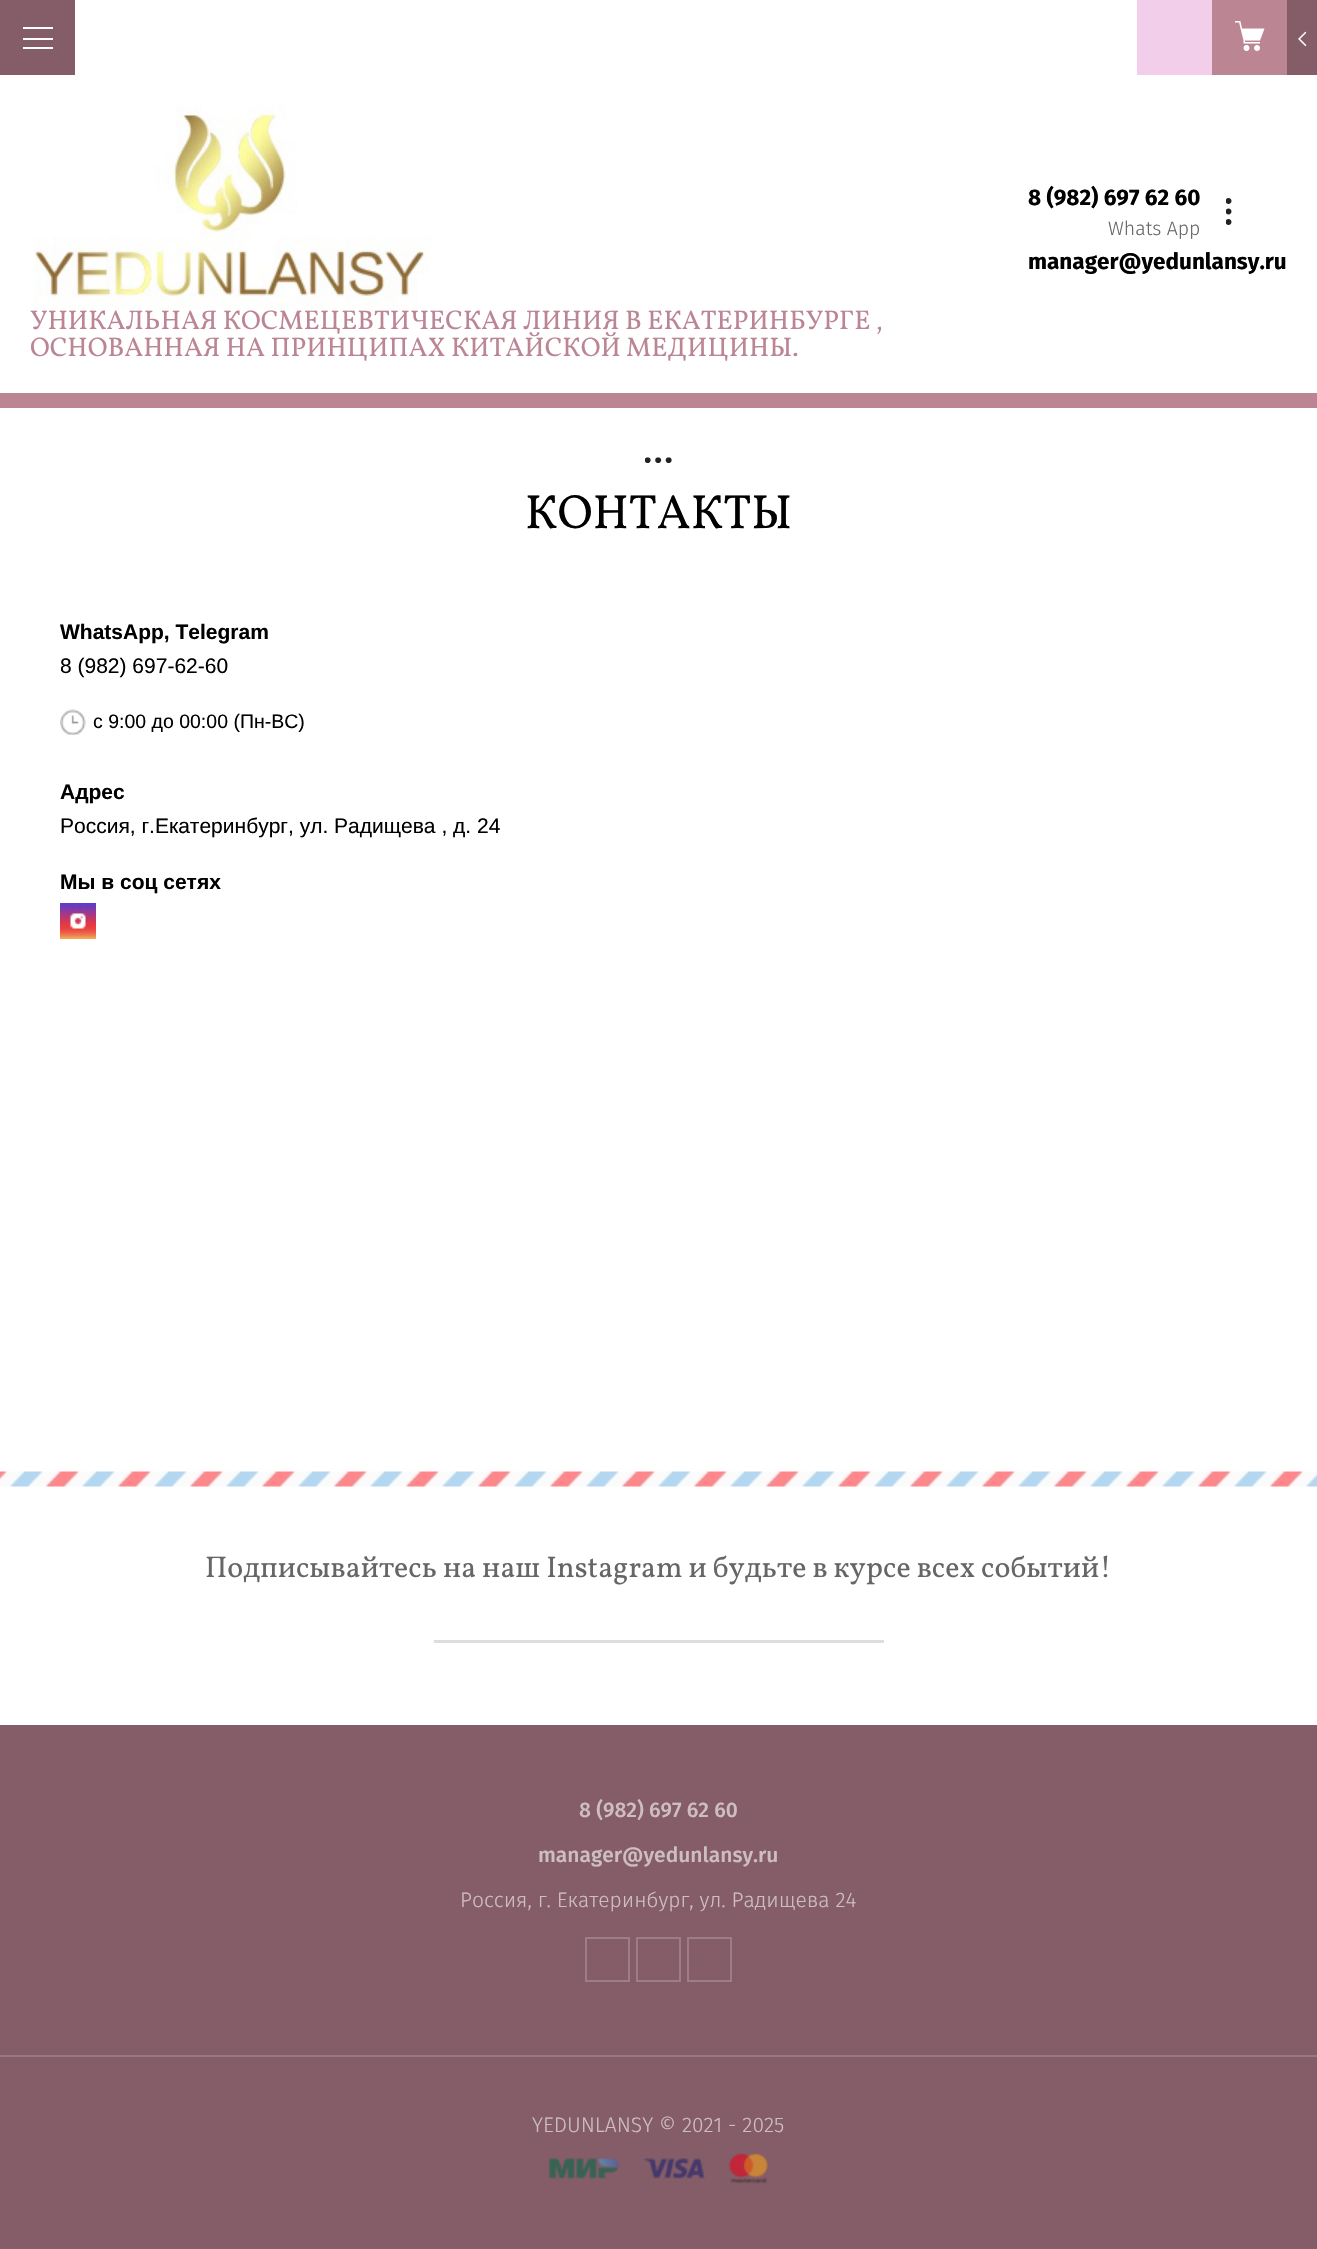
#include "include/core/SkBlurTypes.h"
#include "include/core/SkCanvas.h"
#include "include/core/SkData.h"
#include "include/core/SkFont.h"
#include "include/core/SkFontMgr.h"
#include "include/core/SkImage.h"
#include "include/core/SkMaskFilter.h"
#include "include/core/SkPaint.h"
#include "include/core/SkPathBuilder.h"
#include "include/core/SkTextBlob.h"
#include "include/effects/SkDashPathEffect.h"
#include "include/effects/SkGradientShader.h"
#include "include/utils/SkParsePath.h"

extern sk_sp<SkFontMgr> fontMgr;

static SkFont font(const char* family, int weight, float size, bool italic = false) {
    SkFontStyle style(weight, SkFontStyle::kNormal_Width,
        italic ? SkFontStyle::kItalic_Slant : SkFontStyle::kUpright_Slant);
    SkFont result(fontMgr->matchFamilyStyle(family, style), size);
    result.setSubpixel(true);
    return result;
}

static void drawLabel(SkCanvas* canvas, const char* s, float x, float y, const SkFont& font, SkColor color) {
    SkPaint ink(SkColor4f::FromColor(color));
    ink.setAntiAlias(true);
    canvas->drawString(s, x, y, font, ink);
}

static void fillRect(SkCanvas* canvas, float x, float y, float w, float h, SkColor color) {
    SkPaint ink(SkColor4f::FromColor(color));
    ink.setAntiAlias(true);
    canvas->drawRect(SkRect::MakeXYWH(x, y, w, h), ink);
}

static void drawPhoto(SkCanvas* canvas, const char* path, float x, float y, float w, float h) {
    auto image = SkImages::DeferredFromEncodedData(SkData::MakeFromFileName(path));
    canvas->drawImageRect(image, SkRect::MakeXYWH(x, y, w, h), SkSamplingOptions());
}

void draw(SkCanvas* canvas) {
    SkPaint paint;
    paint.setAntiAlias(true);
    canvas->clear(0xFFBC8594);
    fillRect(canvas, 75, 0, 1062, 75, 0xFFFFFFFF);
    fillRect(canvas, 0, 0, 75, 75, 0xFF845D68);
    fillRect(canvas, 23, 27, 30, 2, 0xFFFFFFFF);
    fillRect(canvas, 23, 38, 30, 2, 0xFFFFFFFF);
    fillRect(canvas, 23, 47, 30, 2, 0xFFFFFFFF);
    fillRect(canvas, 1137, 0, 75, 75, 0xFFF2CEEB);
    drawPhoto(canvas, "assets/img1.png", 1235, 21, 30, 30);
    fillRect(canvas, 1287, 0, 30, 75, 0xFF845D68);
    drawPhoto(canvas, "assets/img2.png", 1298, 31, 9, 16);
    fillRect(canvas, 0, 75, 1317, 318, 0xFFFFFFFF);
    SkFont font1 = font("Fira Sans", 700, 22.5f);
    drawLabel(canvas, "8 (982) 697 62 60", 1028, 205, font1, 0xFF000000);
    SkFont font2 = font("Fira Sans", 300, 19.5f);
    drawLabel(canvas, "Whats App", 1108, 235, font2, 0xFF666666);
    drawPhoto(canvas, "assets/img3.png", 1226, 198, 6, 27);
    drawLabel(canvas, "manager@yedunlansy.ru", 1028, 269, font1, 0xFF000000);
    drawPhoto(canvas, "assets/img4.png", 33, 105, 399, 204);
    SkFont font3 = font("Vollkorn", 400, 27);
    drawLabel(canvas, "УНИКАЛЬНАЯ КОСМЕЦЕВТИЧЕСКАЯ ЛИНИЯ В ЕКАТЕРИНБУРГЕ ,", 30, 329, font3, 0xFFBC8594);
    drawLabel(canvas, "ОСНОВАННАЯ НА ПРИНЦИПАХ КИТАЙСКОЙ МЕДИЦИНЫ.", 30, 356, font3, 0xFFBC8594);
    fillRect(canvas, 0, 408, 1317, 1064, 0xFFFFFFFF);
    drawPhoto(canvas, "assets/img5.png", 645, 457, 27, 6);
    SkFont font4 = font("Vollkorn", 400, 48);
    drawLabel(canvas, "КОНТАКТЫ", 525, 528, font4, 0xFF000000);
    SkFont font5 = font("Liberation Sans", 700, 21);
    drawLabel(canvas, "WhatsApp, Telegram", 60, 639, font5, 0xFF000000);
    SkFont font6 = font("Liberation Sans", 400, 21);
    drawLabel(canvas, "8 (982) 697-62-60", 60, 673, font6, 0xFF000000);
    drawPhoto(canvas, "assets/img6.png", 60, 709, 26, 26);
    SkFont font7 = font("Liberation Sans", 400, 19.5f);
    drawLabel(canvas, "с 9:00 до 00:00 (Пн-ВС)", 93, 728, font7, 0xFF000000);
    drawLabel(canvas, "Адрес", 60, 799, font5, 0xFF000000);
    drawLabel(canvas, "Россия, г.Екатеринбург, ул. Радищева , д. 24", 60, 833, font6, 0xFF000000);
    drawLabel(canvas, "Мы в соц сетях", 60, 889, font5, 0xFF000000);
    drawPhoto(canvas, "assets/img7.png", 60, 903, 36, 36);
    fillRect(canvas, 0, 1486, 1317, 239, 0xFFFFFFFF);
    drawPhoto(canvas, "assets/img8.png", 0, 1471, 1317, 16);
    SkFont font8 = font("Vollkorn", 400, 30);
    drawLabel(canvas, "Подписывайтесь на наш Instagram и будьте в курсе всех событий!", 205, 1577, font8, 0xFF666666);
    fillRect(canvas, 434, 1640, 450, 3, 0xFFDDDDDD);
    fillRect(canvas, 0, 1725, 1317, 524, 0xFF845D68);
    fillRect(canvas, 0, 2055, 1317, 2, 0xFF987780);
    SkFont font9 = font("Fira Sans", 500, 21);
    drawLabel(canvas, "8 (982) 697 62 60", 579, 1817, font9, 0xFFCEBEC3);
    drawLabel(canvas, "manager@yedunlansy.ru", 538, 1862, font9, 0xFFCEBEC3);
    SkFont font10 = font("Fira Sans", 300, 21);
    drawLabel(canvas, "Россия, г. Екатеринбург, ул. Радищева 24", 460, 1907, font10, 0xFFCEBEC3);
    paint.setStroke(true);
    paint.setStrokeWidth(2);
    paint.setColor(0xFF9D7D86);
    canvas->drawRect(SkRect::MakeXYWH(586, 1938, 43, 43), paint);
    canvas->drawRect(SkRect::MakeXYWH(637, 1938, 43, 43), paint);
    canvas->drawRect(SkRect::MakeXYWH(688, 1938, 43, 43), paint);
    drawLabel(canvas, "YEDUNLANSY © 2021 - 2025", 532, 2132, font10, 0xFFCEBEC3);
    drawPhoto(canvas, "assets/img9.png", 548, 2153, 221, 31);
}
